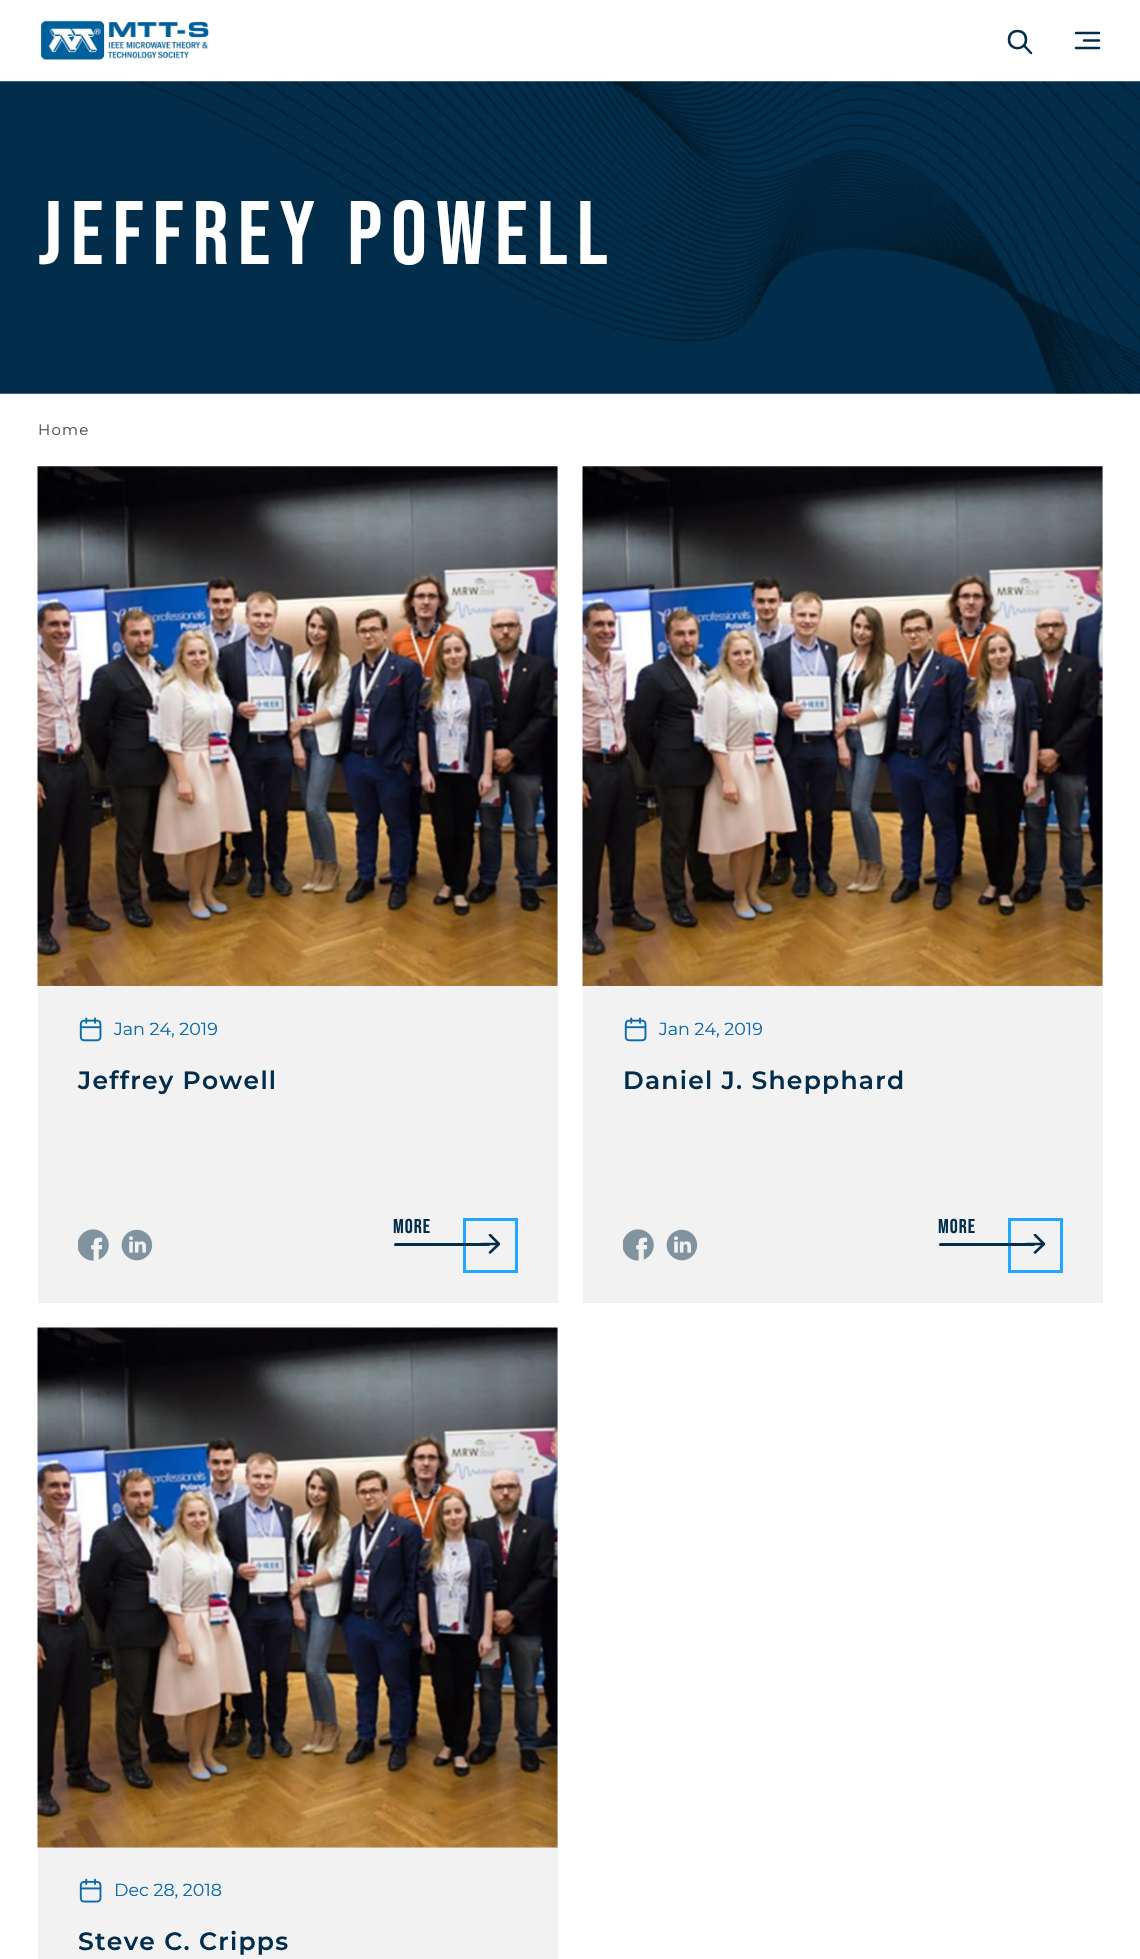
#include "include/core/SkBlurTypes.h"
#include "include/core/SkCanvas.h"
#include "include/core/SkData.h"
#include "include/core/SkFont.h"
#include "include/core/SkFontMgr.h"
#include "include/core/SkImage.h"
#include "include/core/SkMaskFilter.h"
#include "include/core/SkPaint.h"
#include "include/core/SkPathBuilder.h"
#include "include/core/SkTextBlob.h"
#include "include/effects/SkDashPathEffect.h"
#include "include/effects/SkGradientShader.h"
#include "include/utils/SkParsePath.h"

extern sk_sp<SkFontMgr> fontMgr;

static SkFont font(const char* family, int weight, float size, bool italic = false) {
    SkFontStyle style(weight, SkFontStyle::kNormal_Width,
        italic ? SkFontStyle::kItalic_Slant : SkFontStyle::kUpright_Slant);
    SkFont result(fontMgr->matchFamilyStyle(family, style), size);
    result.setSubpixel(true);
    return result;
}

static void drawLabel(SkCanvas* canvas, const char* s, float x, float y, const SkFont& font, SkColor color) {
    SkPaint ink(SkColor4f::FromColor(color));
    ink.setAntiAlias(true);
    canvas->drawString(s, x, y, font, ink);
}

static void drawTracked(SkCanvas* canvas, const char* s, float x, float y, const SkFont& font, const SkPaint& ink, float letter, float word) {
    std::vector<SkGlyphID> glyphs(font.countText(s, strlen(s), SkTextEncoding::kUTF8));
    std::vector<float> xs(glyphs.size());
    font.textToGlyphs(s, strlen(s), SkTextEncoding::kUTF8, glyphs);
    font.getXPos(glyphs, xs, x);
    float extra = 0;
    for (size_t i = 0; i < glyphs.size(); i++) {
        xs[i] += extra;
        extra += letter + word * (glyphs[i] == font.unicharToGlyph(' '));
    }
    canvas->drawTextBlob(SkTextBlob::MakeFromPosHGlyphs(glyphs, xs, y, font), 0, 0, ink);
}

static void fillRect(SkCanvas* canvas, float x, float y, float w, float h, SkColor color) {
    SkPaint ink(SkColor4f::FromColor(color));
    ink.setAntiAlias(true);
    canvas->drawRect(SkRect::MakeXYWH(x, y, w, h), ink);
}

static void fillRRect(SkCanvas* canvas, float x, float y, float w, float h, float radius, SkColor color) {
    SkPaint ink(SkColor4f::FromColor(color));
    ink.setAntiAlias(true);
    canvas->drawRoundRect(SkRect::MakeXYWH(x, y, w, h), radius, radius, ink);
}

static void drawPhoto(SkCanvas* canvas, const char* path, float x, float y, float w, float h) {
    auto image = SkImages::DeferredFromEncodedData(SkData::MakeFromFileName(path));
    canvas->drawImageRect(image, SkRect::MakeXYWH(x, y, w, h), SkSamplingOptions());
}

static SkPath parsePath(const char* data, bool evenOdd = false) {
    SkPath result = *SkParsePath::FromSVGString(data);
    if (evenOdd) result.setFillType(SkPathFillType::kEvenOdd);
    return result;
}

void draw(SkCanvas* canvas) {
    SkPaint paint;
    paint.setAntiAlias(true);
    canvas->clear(0xFFFFFFFF);
    drawPhoto(canvas, "assets/img1.png", 41, 20, 168, 40);
    paint.setStroke(true);
    paint.setStrokeWidth(2.5f);
    paint.setStrokeCap(SkPaint::kRound_Cap);
    paint.setStrokeJoin(SkPaint::kRound_Join);
    paint.setColor(0xFF032E4B);
    canvas->drawPath(parsePath("M1031 53L1024 45.5M1026 39.5C1026 51 1009 51 1009 39.5C1009 28 1026 28 1026 39.5Z"), paint);
    canvas->drawPath(parsePath("M1099 40.5H1084M1099 33H1076M1099 48H1076"), paint);
    drawPhoto(canvas, "assets/img2.png", 0, 81, 1140, 313);
    SkFont font1 = font("Bebas Neue", 400, 90);
    paint.setStroke(false);
    paint.setColor(0xFFFFFFFF);
    drawTracked(canvas, "Jeffrey Powell", 38, 264, font1, paint, 9, 0);
    SkFont font2 = font("Montserrat", 400, 15);
    paint.setColor(0xFF495057);
    drawTracked(canvas, "Home", 38, 435, font2, paint, 1.25f, 0);
    fillRect(canvas, 38, 466, 520, 520, 0xFFDDE2E5);
    drawPhoto(canvas, "assets/img3.png", 37, 466, 521, 521);
    fillRect(canvas, 38, 986, 520, 317, 0xFFF2F2F2);
    drawPhoto(canvas, "assets/img4.png", 79, 1017, 23, 25);
    SkFont font3 = font("Montserrat", 400, 17.5f);
    drawLabel(canvas, "Jan 24, 2019", 114, 1035, font3, 0xFF0A6AAB);
    SkFont font4 = font("Montserrat", 600, 25);
    paint.setColor(0xFF032E4B);
    drawTracked(canvas, "Jeffrey Powell", 78, 1089, font4, paint, 1.25f, 0);
    SkFont font5 = font("Bebas Neue", 400, 20);
    drawTracked(canvas, "More", 393, 1233, font5, paint, 1, 0);
    canvas->save();
    canvas->clipRect(SkRect::MakeXYWH(480, 1234, 20, 20));
    paint.setStroke(true);
    canvas->drawPath(parsePath("M481 1244H499M499 1244L490 1235M499 1244L490 1252.5"), paint);
    canvas->restore();
    paint.setStrokeWidth(3);
    paint.setStrokeCap(SkPaint::kButt_Cap);
    paint.setStrokeJoin(SkPaint::kMiter_Join);
    paint.setColor(0xFF22A6FF);
    canvas->drawRect(SkRect::MakeXYWH(464.5f, 1219.5f, 52, 52), paint);
    fillRRect(canvas, 394, 1243, 96, 3, 1.5f, 0xFF032E4B);
    drawPhoto(canvas, "assets/img5.png", 78, 1229, 31, 32);
    drawPhoto(canvas, "assets/img6.png", 121, 1229, 32, 32);
    fillRect(canvas, 583, 466, 520, 520, 0xFFDDE2E5);
    drawPhoto(canvas, "assets/img3.png", 582, 466, 521, 521);
    fillRect(canvas, 583, 986, 520, 317, 0xFFF2F2F2);
    drawPhoto(canvas, "assets/img4.png", 624, 1017, 23, 25);
    drawLabel(canvas, "Jan 24, 2019", 659, 1035, font3, 0xFF0A6AAB);
    paint.setStroke(false);
    paint.setColor(0xFF032E4B);
    drawTracked(canvas, "Daniel J. Shepphard", 623, 1089, font4, paint, 1.25f, 0);
    drawTracked(canvas, "More", 938, 1233, font5, paint, 1, 0);
    canvas->save();
    canvas->clipRect(SkRect::MakeXYWH(1025, 1234, 20, 20));
    paint.setStroke(true);
    paint.setStrokeWidth(2.5f);
    paint.setStrokeCap(SkPaint::kRound_Cap);
    paint.setStrokeJoin(SkPaint::kRound_Join);
    canvas->drawPath(parsePath("M1026 1244H1044M1044 1244L1035 1235M1044 1244L1035 1252.5"), paint);
    canvas->restore();
    paint.setStrokeWidth(3);
    paint.setStrokeCap(SkPaint::kButt_Cap);
    paint.setStrokeJoin(SkPaint::kMiter_Join);
    paint.setColor(0xFF22A6FF);
    canvas->drawRect(SkRect::MakeXYWH(1009.5f, 1219.5f, 52, 52), paint);
    fillRRect(canvas, 939, 1243, 96, 3, 1.5f, 0xFF032E4B);
    drawPhoto(canvas, "assets/img5.png", 623, 1229, 31, 32);
    drawPhoto(canvas, "assets/img6.png", 666, 1229, 32, 32);
    fillRect(canvas, 38, 1328, 520, 520, 0xFFDDE2E5);
    drawPhoto(canvas, "assets/img7.png", 37, 1327, 521, 521);
    fillRect(canvas, 38, 1848, 520, 111, 0xFFF2F2F2);
    drawPhoto(canvas, "assets/img8.png", 79, 1878, 23, 25);
    drawLabel(canvas, "Dec 28, 2018", 114, 1896, font3, 0xFF0A6AAB);
    paint.setStroke(false);
    paint.setColor(0xFF032E4B);
    drawTracked(canvas, "Steve C. Cripps", 78, 1950, font4, paint, 1.25f, 0);
}
